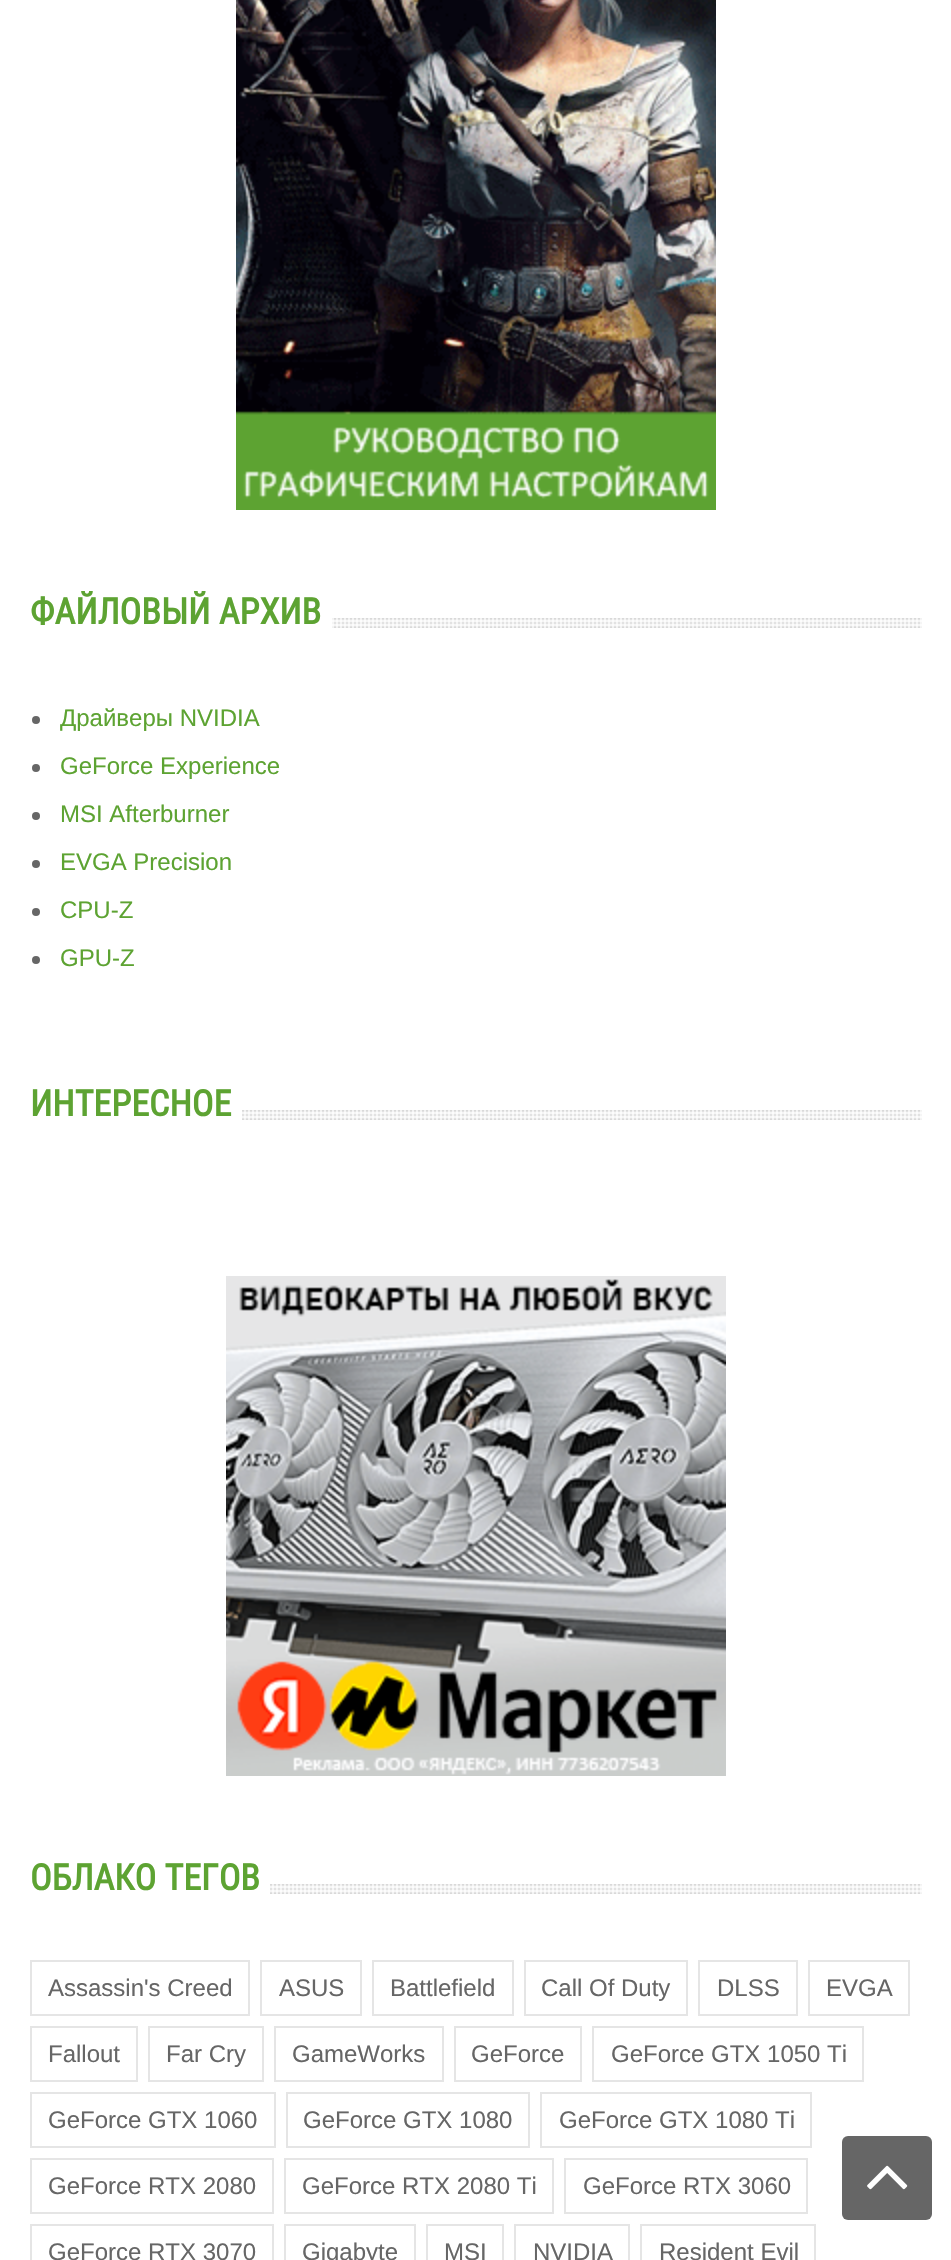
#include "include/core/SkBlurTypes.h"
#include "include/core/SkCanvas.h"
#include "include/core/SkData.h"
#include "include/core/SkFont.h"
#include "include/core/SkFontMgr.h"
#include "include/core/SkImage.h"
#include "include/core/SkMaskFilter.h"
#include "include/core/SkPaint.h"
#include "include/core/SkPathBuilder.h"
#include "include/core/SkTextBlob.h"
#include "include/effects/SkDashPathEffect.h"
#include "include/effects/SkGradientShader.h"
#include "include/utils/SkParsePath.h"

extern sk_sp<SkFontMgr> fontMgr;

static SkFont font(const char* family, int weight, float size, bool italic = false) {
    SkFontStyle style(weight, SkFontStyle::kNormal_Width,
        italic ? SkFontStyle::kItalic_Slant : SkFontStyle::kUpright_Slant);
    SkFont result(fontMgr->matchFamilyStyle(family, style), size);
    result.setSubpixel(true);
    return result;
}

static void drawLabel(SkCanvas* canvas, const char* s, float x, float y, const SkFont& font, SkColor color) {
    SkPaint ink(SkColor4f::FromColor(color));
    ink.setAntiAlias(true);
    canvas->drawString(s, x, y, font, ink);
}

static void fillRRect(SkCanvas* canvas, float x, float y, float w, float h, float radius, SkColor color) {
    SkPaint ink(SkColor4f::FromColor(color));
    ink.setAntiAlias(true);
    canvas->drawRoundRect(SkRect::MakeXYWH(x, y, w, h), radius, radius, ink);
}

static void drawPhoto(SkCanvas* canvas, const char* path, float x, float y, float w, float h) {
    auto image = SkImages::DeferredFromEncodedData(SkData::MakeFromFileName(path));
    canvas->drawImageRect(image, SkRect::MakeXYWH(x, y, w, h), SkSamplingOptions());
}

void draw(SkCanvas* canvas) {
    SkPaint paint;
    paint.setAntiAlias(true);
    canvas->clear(0xFFFFFFFF);
    drawPhoto(canvas, "assets/img1.png", 236, 0, 480, 510);
    drawPhoto(canvas, "assets/img2.png", 332, 618, 590, 10);
    SkFont font1 = font("Roboto Condensed", 700, 36);
    drawLabel(canvas, "ФАЙЛОВЫЙ АРХИВ", 30, 624, font1, 0xFF5DA332);
    paint.setColor(0xFF666666);
    canvas->drawCircle(36, 720, 4, paint);
    SkFont font2 = font("Liberation Sans", 400, 24);
    drawLabel(canvas, "Драйверы NVIDIA", 60, 726, font2, 0xFF5DA332);
    canvas->drawCircle(36, 768, 4, paint);
    drawLabel(canvas, "GeForce Experience", 60, 774, font2, 0xFF5DA332);
    canvas->drawCircle(36, 816, 4, paint);
    drawLabel(canvas, "MSI Afterburner", 60, 822, font2, 0xFF5DA332);
    canvas->drawCircle(36, 864, 4, paint);
    drawLabel(canvas, "EVGA Precision", 60, 870, font2, 0xFF5DA332);
    canvas->drawCircle(36, 912, 4, paint);
    drawLabel(canvas, "CPU-Z", 60, 918, font2, 0xFF5DA332);
    canvas->drawCircle(36, 960, 4, paint);
    drawLabel(canvas, "GPU-Z", 60, 966, font2, 0xFF5DA332);
    drawPhoto(canvas, "assets/img3.png", 242, 1110, 680, 10);
    drawLabel(canvas, "ИНТЕРЕСНОЕ", 30, 1116, font1, 0xFF5DA332);
    drawPhoto(canvas, "assets/img4.png", 226, 1276, 500, 500);
    drawPhoto(canvas, "assets/img5.png", 270, 1884, 652, 10);
    drawLabel(canvas, "ОБЛАКО ТЕГОВ", 30, 1890, font1, 0xFF5DA332);
    paint.setStroke(true);
    paint.setStrokeWidth(2);
    paint.setColor(0xFFE5E5E5);
    canvas->drawRect(SkRect::MakeXYWH(31, 1961, 218, 54), paint);
    drawLabel(canvas, "Assassin's Creed", 48, 1996, font2, 0xFF666666);
    canvas->drawRect(SkRect::MakeXYWH(261, 1961, 100, 54), paint);
    drawLabel(canvas, "ASUS", 279, 1996, font2, 0xFF666666);
    canvas->drawRect(SkRect::MakeXYWH(373, 1961, 140, 54), paint);
    drawLabel(canvas, "Battlefield", 390, 1996, font2, 0xFF666666);
    canvas->drawRect(SkRect::MakeXYWH(525, 1961, 162, 54), paint);
    drawLabel(canvas, "Call Of Duty", 541, 1996, font2, 0xFF666666);
    canvas->drawRect(SkRect::MakeXYWH(699, 1961, 98, 54), paint);
    drawLabel(canvas, "DLSS", 717, 1996, font2, 0xFF666666);
    canvas->drawRect(SkRect::MakeXYWH(809, 1961, 100, 54), paint);
    drawLabel(canvas, "EVGA", 826, 1996, font2, 0xFF666666);
    canvas->drawRect(SkRect::MakeXYWH(31, 2027, 106, 54), paint);
    drawLabel(canvas, "Fallout", 48, 2062, font2, 0xFF666666);
    canvas->drawRect(SkRect::MakeXYWH(149, 2027, 114, 54), paint);
    drawLabel(canvas, "Far Cry", 166, 2062, font2, 0xFF666666);
    canvas->drawRect(SkRect::MakeXYWH(275, 2027, 168, 54), paint);
    drawLabel(canvas, "GameWorks", 292, 2062, font2, 0xFF666666);
    canvas->drawRect(SkRect::MakeXYWH(455, 2027, 126, 54), paint);
    drawLabel(canvas, "GeForce", 471, 2062, font2, 0xFF666666);
    canvas->drawRect(SkRect::MakeXYWH(593, 2027, 270, 54), paint);
    drawLabel(canvas, "GeForce GTX 1050 Ti", 611, 2062, font2, 0xFF666666);
    canvas->drawRect(SkRect::MakeXYWH(31, 2093, 244, 54), paint);
    drawLabel(canvas, "GeForce GTX 1060", 48, 2128, font2, 0xFF666666);
    canvas->drawRect(SkRect::MakeXYWH(287, 2093, 242, 54), paint);
    drawLabel(canvas, "GeForce GTX 1080", 303, 2128, font2, 0xFF666666);
    canvas->drawRect(SkRect::MakeXYWH(541, 2093, 270, 54), paint);
    drawLabel(canvas, "GeForce GTX 1080 Ti", 559, 2128, font2, 0xFF666666);
    canvas->drawRect(SkRect::MakeXYWH(31, 2159, 242, 54), paint);
    drawLabel(canvas, "GeForce RTX 2080", 48, 2194, font2, 0xFF666666);
    canvas->drawRect(SkRect::MakeXYWH(285, 2159, 268, 54), paint);
    drawLabel(canvas, "GeForce RTX 2080 Ti", 302, 2194, font2, 0xFF666666);
    canvas->drawRect(SkRect::MakeXYWH(565, 2159, 242, 54), paint);
    drawLabel(canvas, "GeForce RTX 3060", 583, 2194, font2, 0xFF666666);
    canvas->drawRect(SkRect::MakeXYWH(31, 2225, 242, 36), paint);
    drawLabel(canvas, "GeForce RTX 3070", 48, 2260, font2, 0xFF666666);
    canvas->drawRect(SkRect::MakeXYWH(285, 2225, 130, 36), paint);
    drawLabel(canvas, "Gigabyte", 302, 2260, font2, 0xFF666666);
    canvas->drawRect(SkRect::MakeXYWH(427, 2225, 76, 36), paint);
    drawLabel(canvas, "MSI", 444, 2260, font2, 0xFF666666);
    canvas->drawRect(SkRect::MakeXYWH(515, 2225, 114, 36), paint);
    drawLabel(canvas, "NVIDIA", 533, 2260, font2, 0xFF666666);
    canvas->drawRect(SkRect::MakeXYWH(641, 2225, 174, 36), paint);
    drawLabel(canvas, "Resident Evil", 659, 2260, font2, 0xFF666666);
    fillRRect(canvas, 842, 2136, 90, 84, 6, 0xFF666666);
    drawPhoto(canvas, "assets/img6.png", 867, 2165, 41, 25);
}
